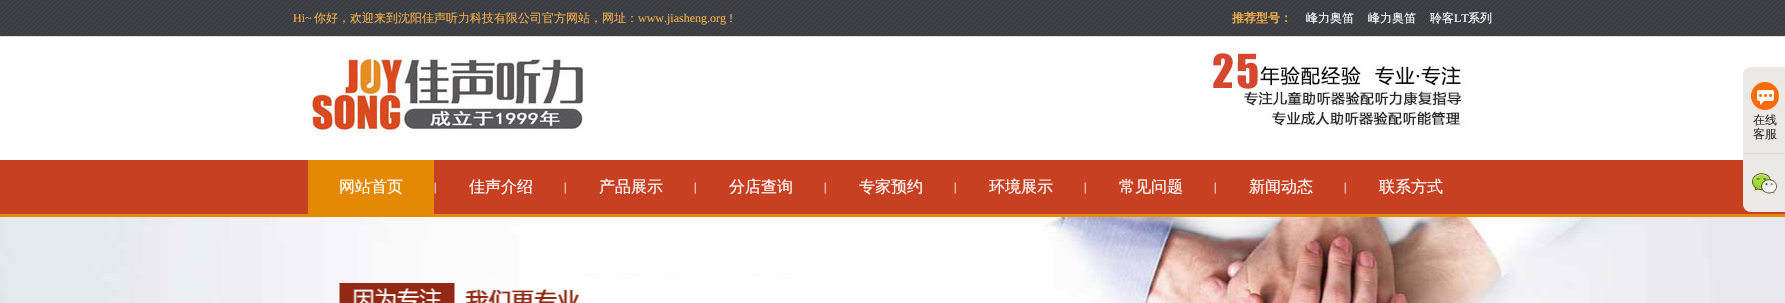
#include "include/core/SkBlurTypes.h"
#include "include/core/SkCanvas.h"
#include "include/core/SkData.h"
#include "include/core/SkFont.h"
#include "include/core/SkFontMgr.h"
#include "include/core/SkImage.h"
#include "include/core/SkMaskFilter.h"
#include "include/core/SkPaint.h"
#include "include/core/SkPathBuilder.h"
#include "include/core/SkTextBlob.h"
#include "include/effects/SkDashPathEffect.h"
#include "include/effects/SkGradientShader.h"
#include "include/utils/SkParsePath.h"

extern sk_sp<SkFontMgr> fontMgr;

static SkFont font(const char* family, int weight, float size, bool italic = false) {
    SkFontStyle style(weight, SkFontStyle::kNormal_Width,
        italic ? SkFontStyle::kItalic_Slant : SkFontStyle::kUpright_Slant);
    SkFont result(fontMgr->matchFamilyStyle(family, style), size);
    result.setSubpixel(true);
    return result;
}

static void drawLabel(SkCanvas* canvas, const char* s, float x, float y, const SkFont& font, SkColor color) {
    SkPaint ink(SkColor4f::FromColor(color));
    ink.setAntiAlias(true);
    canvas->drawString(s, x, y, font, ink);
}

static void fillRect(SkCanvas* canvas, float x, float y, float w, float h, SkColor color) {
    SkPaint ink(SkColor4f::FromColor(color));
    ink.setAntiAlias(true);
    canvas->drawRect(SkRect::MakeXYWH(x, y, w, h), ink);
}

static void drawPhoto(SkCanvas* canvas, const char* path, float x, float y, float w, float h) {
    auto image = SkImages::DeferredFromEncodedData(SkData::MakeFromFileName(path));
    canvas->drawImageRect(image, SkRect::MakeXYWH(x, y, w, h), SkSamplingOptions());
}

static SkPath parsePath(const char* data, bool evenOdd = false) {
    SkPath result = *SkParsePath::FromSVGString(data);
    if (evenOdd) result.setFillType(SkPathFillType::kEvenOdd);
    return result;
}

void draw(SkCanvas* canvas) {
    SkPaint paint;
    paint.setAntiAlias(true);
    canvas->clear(0xFFFFFFFF);
    drawPhoto(canvas, "assets/img1.png", 0, 0, 1785, 36);
    fillRect(canvas, 0, 36, 1785, 1, 0xFFDFDFDF);
    SkFont font1 = font("Liberation Serif", 400, 12);
    drawLabel(canvas, "Hi~", 293, 22, font1, 0xFFF7AF49);
    SkFont font2 = font("WenQuanYi Zen Hei", 500, 12);
    drawLabel(canvas, "你好，欢迎来到沈阳佳声听力科技有限公司官方网站，网址：", 314, 22, font2, 0xFFF7AF49);
    drawLabel(canvas, "www.jiasheng.org !", 638, 22, font1, 0xFFF7AF49);
    SkFont font3 = font("WenQuanYi Zen Hei", 700, 12);
    drawLabel(canvas, "推荐型号：", 1232, 22, font3, 0xFFF7AF49);
    drawLabel(canvas, "峰力奥笛", 1306, 22, font2, 0xFFFFFFFF);
    drawLabel(canvas, "峰力奥笛", 1368, 22, font2, 0xFFFFFFFF);
    drawLabel(canvas, "聆客", 1430, 22, font2, 0xFFFFFFFF);
    drawLabel(canvas, "LT", 1454, 22, font1, 0xFFFFFFFF);
    drawLabel(canvas, "系列", 1468, 22, font2, 0xFFFFFFFF);
    drawPhoto(canvas, "assets/img2.png", 311, 53, 272, 80);
    drawPhoto(canvas, "assets/img3.png", 1210, 48, 265, 80);
    paint.setColor(0xFFECE8E5);
    canvas->drawPath(parsePath("M1751 67H1785V154H1743V75C1743 70.5 1746.5 67 1751 67Z"), paint);
    fillRect(canvas, 1743, 153, 42, 1, 0xFFDFDBD9);
    drawPhoto(canvas, "assets/img4.png", 1751, 82, 28, 28);
    drawLabel(canvas, "在线", 1753, 124, font2, 0xFF2C2C2C);
    drawLabel(canvas, "客服", 1753, 138, font2, 0xFF2C2C2C);
    fillRect(canvas, 0, 160, 1785, 54, 0xFFC64021);
    canvas->drawPath(parsePath("M1743 154H1785V212H1751C1746.5 212 1743 208.5 1743 204Z"), paint);
    drawPhoto(canvas, "assets/img5.png", 1752, 173, 25, 21);
    fillRect(canvas, 0, 214, 1785, 3, 0xFFE58903);
    fillRect(canvas, 308, 160, 126, 54, 0xFFE58903);
    SkFont font4 = font("WenQuanYi Zen Hei", 500, 16);
    drawLabel(canvas, "网站首页", 339, 192, font4, 0xFFFFFFFF);
    drawLabel(canvas, "|", 434, 191, font1, 0xFFFFFFFF);
    drawLabel(canvas, "佳声介绍", 469, 192, font4, 0xFFFFFFFF);
    drawLabel(canvas, "|", 564, 191, font1, 0xFFFFFFFF);
    drawLabel(canvas, "产品展示", 599, 192, font4, 0xFFFFFFFF);
    drawLabel(canvas, "|", 694, 191, font1, 0xFFFFFFFF);
    drawLabel(canvas, "分店查询", 729, 192, font4, 0xFFFFFFFF);
    drawLabel(canvas, "|", 824, 191, font1, 0xFFFFFFFF);
    drawLabel(canvas, "专家预约", 859, 192, font4, 0xFFFFFFFF);
    drawLabel(canvas, "|", 954, 191, font1, 0xFFFFFFFF);
    drawLabel(canvas, "环境展示", 989, 192, font4, 0xFFFFFFFF);
    drawLabel(canvas, "|", 1084, 191, font1, 0xFFFFFFFF);
    drawLabel(canvas, "常见问题", 1119, 192, font4, 0xFFFFFFFF);
    drawLabel(canvas, "|", 1214, 191, font1, 0xFFFFFFFF);
    drawLabel(canvas, "新闻动态", 1249, 192, font4, 0xFFFFFFFF);
    drawLabel(canvas, "|", 1344, 191, font1, 0xFFFFFFFF);
    drawLabel(canvas, "联系方式", 1379, 192, font4, 0xFFFFFFFF);
    drawPhoto(canvas, "assets/img6.png", 0, 217, 1785, 86);
}
